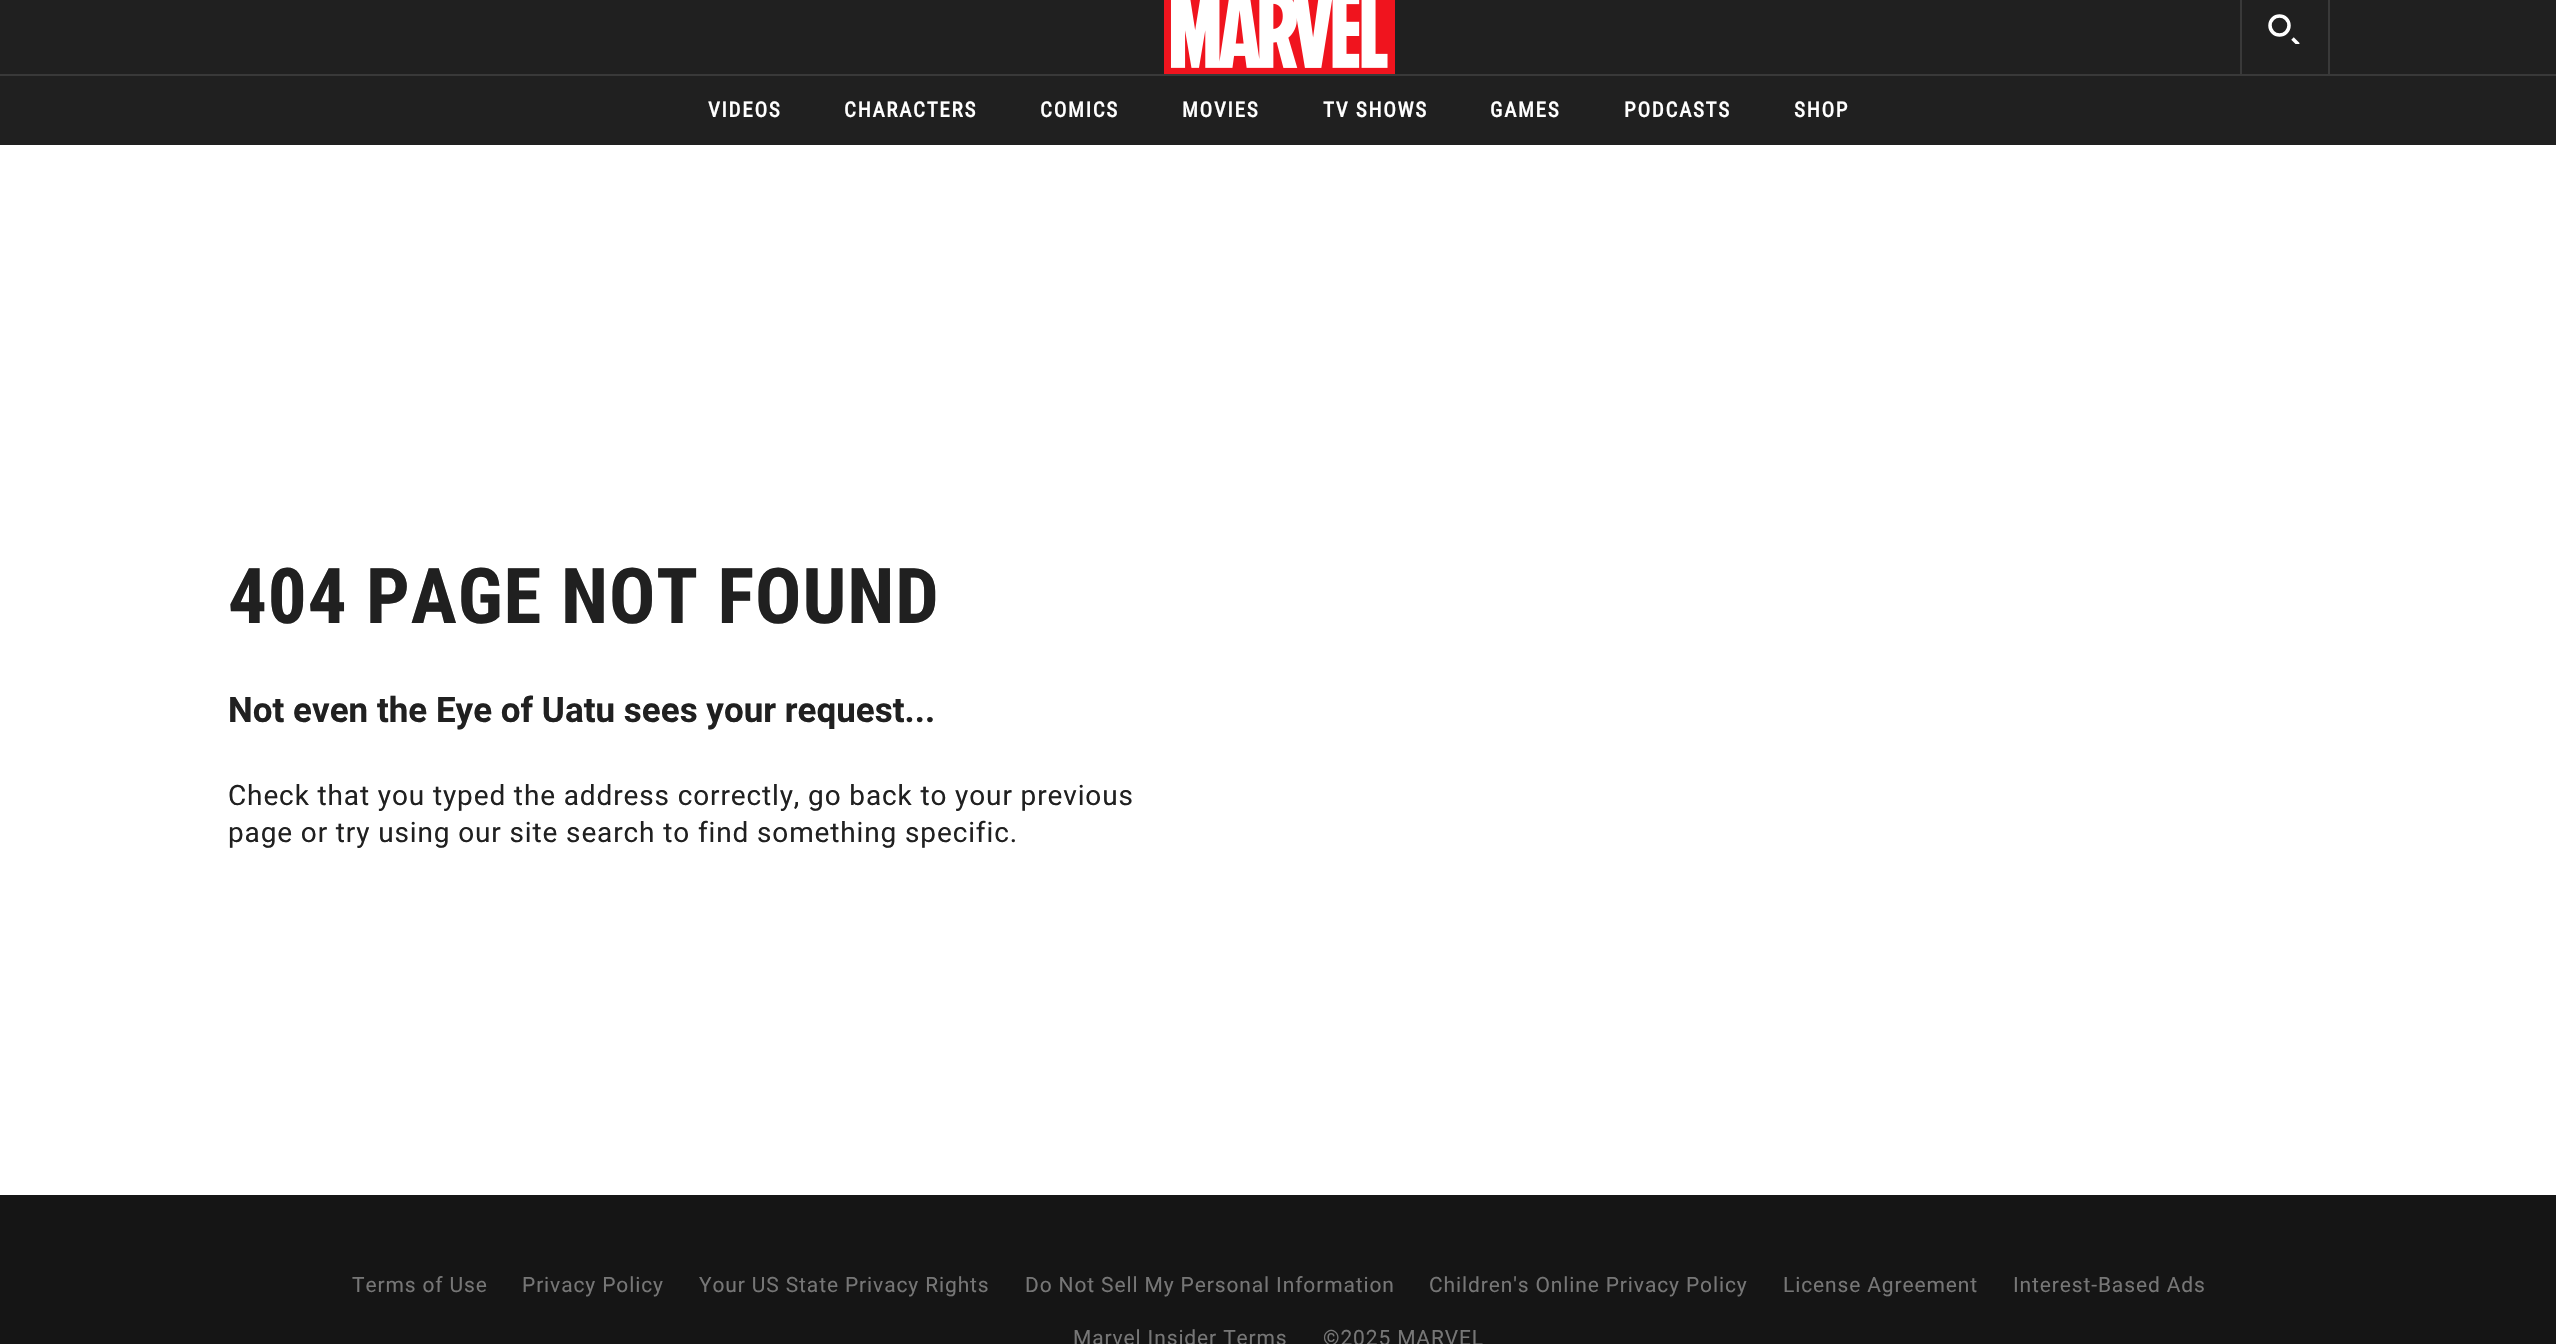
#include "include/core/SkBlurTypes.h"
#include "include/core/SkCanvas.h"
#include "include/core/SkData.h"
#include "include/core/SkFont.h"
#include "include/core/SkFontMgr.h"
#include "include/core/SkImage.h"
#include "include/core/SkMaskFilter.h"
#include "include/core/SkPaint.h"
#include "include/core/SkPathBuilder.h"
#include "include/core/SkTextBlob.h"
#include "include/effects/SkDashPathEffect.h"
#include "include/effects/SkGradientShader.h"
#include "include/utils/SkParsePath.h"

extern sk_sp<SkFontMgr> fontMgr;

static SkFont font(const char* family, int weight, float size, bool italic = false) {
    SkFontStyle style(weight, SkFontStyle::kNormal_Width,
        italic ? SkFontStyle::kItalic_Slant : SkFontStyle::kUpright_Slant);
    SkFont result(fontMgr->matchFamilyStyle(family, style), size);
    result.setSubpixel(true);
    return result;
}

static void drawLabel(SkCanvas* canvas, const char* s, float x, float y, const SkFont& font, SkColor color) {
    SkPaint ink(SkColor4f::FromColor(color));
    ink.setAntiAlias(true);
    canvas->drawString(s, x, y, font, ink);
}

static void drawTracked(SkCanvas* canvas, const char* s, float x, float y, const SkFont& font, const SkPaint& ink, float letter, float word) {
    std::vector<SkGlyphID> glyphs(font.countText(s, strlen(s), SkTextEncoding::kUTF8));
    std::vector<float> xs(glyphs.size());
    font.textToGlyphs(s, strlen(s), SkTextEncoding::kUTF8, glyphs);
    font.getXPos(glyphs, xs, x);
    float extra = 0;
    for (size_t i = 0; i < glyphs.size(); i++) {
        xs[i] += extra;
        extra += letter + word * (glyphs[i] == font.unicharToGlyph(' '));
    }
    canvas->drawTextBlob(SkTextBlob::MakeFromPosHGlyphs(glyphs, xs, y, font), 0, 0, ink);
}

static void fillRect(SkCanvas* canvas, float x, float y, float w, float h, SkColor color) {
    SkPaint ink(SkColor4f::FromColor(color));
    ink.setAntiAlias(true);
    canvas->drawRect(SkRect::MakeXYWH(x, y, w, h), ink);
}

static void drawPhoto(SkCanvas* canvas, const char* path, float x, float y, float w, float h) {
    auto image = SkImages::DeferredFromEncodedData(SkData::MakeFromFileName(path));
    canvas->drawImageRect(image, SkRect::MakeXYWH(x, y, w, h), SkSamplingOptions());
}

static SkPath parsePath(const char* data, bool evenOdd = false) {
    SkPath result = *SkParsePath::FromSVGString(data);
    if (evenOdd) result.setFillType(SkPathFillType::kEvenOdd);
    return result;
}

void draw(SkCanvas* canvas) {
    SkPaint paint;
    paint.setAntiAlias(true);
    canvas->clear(0xFF151515);
    fillRect(canvas, 0, 0, 2556, 145, 0xFF202020);
    fillRect(canvas, 0, 74, 2556, 2, 0xFF393939);
    fillRect(canvas, 1164, 0, 231, 74, 0xFFF0141E);
    drawPhoto(canvas, "assets/img1.png", 1170, 0, 218, 68);
    fillRect(canvas, 2328, 0, 2, 74, 0xFF393939);
    fillRect(canvas, 2240, 0, 2, 74, 0xFF393939);
    paint.setStroke(true);
    paint.setStrokeWidth(3.5f);
    paint.setColor(0xFFFFFFFF);
    canvas->drawCircle(2279.5f, 25.5f, 9.5f, paint);
    canvas->save();
    canvas->clipRect(SkRect::MakeXYWH(2268, 14, 33, 30));
    canvas->drawPath(parsePath("M2292.5 38.5L2298.5 44.5"), paint);
    canvas->restore();
    SkFont font1 = font("Roboto Condensed", 700, 21);
    paint.setStroke(false);
    drawTracked(canvas, "VIDEOS", 708, 117, font1, paint, 1.75f, 0);
    drawTracked(canvas, "CHARACTERS", 844, 117, font1, paint, 1.75f, 0);
    drawTracked(canvas, "COMICS", 1040, 117, font1, paint, 1.75f, 0);
    drawTracked(canvas, "MOVIES", 1182, 117, font1, paint, 1.75f, 0);
    drawTracked(canvas, "TV SHOWS", 1323, 117, font1, paint, 1.75f, 0);
    drawTracked(canvas, "GAMES", 1490, 117, font1, paint, 1.75f, 0);
    drawTracked(canvas, "PODCASTS", 1624, 117, font1, paint, 1.75f, 0);
    drawTracked(canvas, "SHOP", 1794, 117, font1, paint, 1.75f, 0);
    fillRect(canvas, 0, 145, 2556, 1050, 0xFFFFFFFF);
    SkFont font2 = font("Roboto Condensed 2", 700, 77);
    paint.setColor(0xFF202020);
    drawTracked(canvas, "404 PAGE NOT FOUND", 228, 623, font2, paint, 0.88f, 0);
    SkFont font3 = font("Roboto", 700, 35);
    drawLabel(canvas, "Not even the Eye of Uatu sees your request...", 228, 722, font3, 0xFF202020);
    SkFont font4 = font("Roboto", 400, 28);
    drawTracked(canvas, "Check that you typed the address correctly, go back to your previous", 228, 805, font4, paint, 0.88f, 0);
    drawTracked(canvas, "page or try using our site search to find something specific.", 228, 842, font4, paint, 0.88f, 0);
    SkFont font5 = font("Roboto", 400, 21);
    paint.setColor(0xFF767676);
    drawTracked(canvas, "Terms of Use", 352, 1292, font5, paint, 0.88f, 0);
    drawTracked(canvas, "Privacy Policy", 522, 1292, font5, paint, 0.88f, 0);
    drawTracked(canvas, "Your US State Privacy Rights", 699, 1292, font5, paint, 0.88f, 0);
    drawTracked(canvas, "Do Not Sell My Personal Information", 1025, 1292, font5, paint, 0.88f, 0);
    drawTracked(canvas, "Children's Online Privacy Policy", 1429, 1292, font5, paint, 0.88f, 0);
    drawTracked(canvas, "License Agreement", 1783, 1292, font5, paint, 0.88f, 0);
    drawTracked(canvas, "Interest-Based Ads", 2013, 1292, font5, paint, 0.88f, 0);
    drawTracked(canvas, "Marvel Insider Terms", 1073, 1345, font5, paint, 0.88f, 0);
    drawTracked(canvas, "©2025 MARVEL", 1323, 1345, font5, paint, 0.88f, 0);
}
